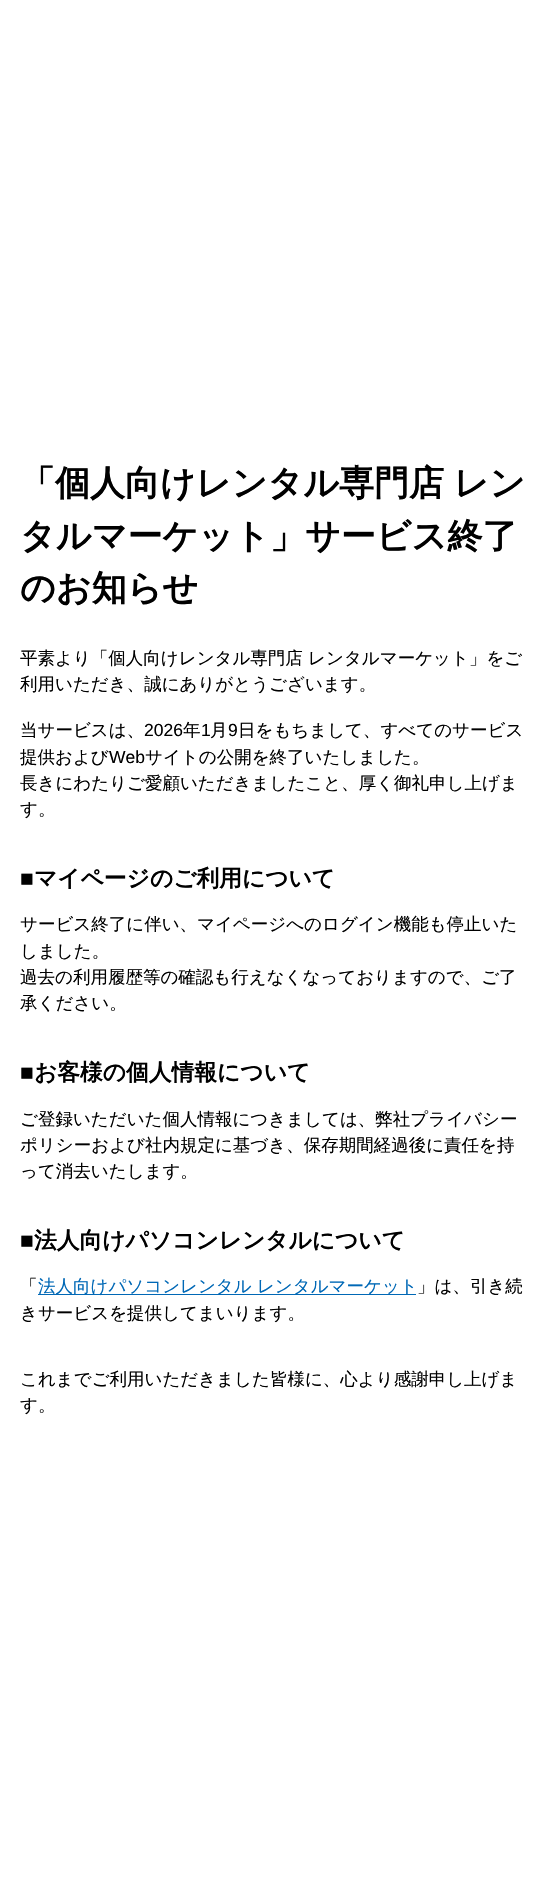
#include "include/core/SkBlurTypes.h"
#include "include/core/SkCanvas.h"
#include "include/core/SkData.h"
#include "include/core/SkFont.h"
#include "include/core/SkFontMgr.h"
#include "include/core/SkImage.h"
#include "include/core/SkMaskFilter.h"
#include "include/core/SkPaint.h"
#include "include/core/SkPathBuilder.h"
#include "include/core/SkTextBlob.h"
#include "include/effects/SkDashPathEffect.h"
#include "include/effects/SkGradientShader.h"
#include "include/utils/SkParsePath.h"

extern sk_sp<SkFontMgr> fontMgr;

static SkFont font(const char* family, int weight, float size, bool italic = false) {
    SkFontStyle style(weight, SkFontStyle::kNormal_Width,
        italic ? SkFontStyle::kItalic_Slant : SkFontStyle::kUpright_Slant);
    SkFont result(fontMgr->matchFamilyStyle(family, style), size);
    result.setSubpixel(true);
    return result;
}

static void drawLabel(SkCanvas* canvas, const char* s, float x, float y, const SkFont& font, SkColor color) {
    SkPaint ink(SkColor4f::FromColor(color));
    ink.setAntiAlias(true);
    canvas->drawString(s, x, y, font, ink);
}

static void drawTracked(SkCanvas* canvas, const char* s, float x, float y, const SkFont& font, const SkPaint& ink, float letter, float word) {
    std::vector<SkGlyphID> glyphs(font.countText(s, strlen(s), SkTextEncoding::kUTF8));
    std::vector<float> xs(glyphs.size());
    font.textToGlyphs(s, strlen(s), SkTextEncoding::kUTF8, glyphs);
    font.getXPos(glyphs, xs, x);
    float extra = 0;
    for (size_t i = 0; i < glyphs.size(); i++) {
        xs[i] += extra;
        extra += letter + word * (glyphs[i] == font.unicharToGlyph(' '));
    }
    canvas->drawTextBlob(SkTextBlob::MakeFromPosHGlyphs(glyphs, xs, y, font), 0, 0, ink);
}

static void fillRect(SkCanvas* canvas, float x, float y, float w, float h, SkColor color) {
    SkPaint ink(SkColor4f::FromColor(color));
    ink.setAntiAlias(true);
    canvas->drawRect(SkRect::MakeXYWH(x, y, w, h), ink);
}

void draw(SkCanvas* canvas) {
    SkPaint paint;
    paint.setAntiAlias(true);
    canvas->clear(0xFFFFFFFF);
    SkFont font1 = font("WenQuanYi Zen Hei", 700, 35);
    paint.setColor(0xFF000000);
    drawTracked(canvas, "「個人向けレンタル専門店 レン", 20, 495, font1, paint, 0, -1);
    drawLabel(canvas, "タルマーケット」サービス終了", 20, 548, font1, 0xFF000000);
    drawLabel(canvas, "のお知らせ", 20, 600, font1, 0xFF000000);
    SkFont font2 = font("WenQuanYi Zen Hei", 500, 17.5f);
    drawLabel(canvas, "平素より「個人向けレンタル専門店 レンタルマーケット」をご", 20, 664, font2, 0xFF000000);
    drawLabel(canvas, "利用いただき、誠にありがとうございます。", 20, 690, font2, 0xFF000000);
    drawLabel(canvas, "当サービスは、", 20, 736, font2, 0xFF000000);
    SkFont font3 = font("Liberation Sans", 400, 17.5f);
    drawLabel(canvas, "2026", 144, 736, font3, 0xFF000000);
    drawLabel(canvas, "年", 183, 736, font2, 0xFF000000);
    drawLabel(canvas, "1", 201, 736, font3, 0xFF000000);
    drawLabel(canvas, "月", 210, 736, font2, 0xFF000000);
    drawLabel(canvas, "9", 228, 736, font3, 0xFF000000);
    drawLabel(canvas, "日をもちまして、すべてのサービス", 238, 736, font2, 0xFF000000);
    drawLabel(canvas, "提供および", 20, 763, font2, 0xFF000000);
    drawLabel(canvas, "Web", 109, 763, font3, 0xFF000000);
    drawLabel(canvas, "サイトの公開を終了いたしました。", 145, 763, font2, 0xFF000000);
    drawLabel(canvas, "長きにわたりご愛顧いただきましたこと、厚く御礼申し上げま", 20, 789, font2, 0xFF000000);
    drawLabel(canvas, "す。", 20, 815, font2, 0xFF000000);
    SkFont font4 = font("Liberation Sans", 700, 22.75f);
    drawLabel(canvas, "■", 20, 886, font4, 0xFF000000);
    SkFont font5 = font("WenQuanYi Zen Hei", 700, 22.75f);
    drawLabel(canvas, "マイページのご利用について", 34, 886, font5, 0xFF000000);
    drawLabel(canvas, "サービス終了に伴い、マイページへのログイン機能も停止いた", 20, 930, font2, 0xFF000000);
    drawLabel(canvas, "しました。", 20, 957, font2, 0xFF000000);
    drawLabel(canvas, "過去の利用履歴等の確認も行えなくなっておりますので、ご了", 20, 983, font2, 0xFF000000);
    drawLabel(canvas, "承ください。", 20, 1009, font2, 0xFF000000);
    drawLabel(canvas, "■", 20, 1080, font4, 0xFF000000);
    drawLabel(canvas, "お客様の個人情報について", 34, 1080, font5, 0xFF000000);
    drawLabel(canvas, "ご登録いただいた個人情報につきましては、弊社プライバシー", 20, 1125, font2, 0xFF000000);
    drawLabel(canvas, "ポリシーおよび社内規定に基づき、保存期間経過後に責任を持", 20, 1151, font2, 0xFF000000);
    drawLabel(canvas, "って消去いたします。", 20, 1177, font2, 0xFF000000);
    drawLabel(canvas, "■", 20, 1248, font4, 0xFF000000);
    drawLabel(canvas, "法人向けパソコンレンタルについて", 34, 1248, font5, 0xFF000000);
    drawLabel(canvas, "「", 20, 1292, font2, 0xFF000000);
    fillRect(canvas, 38, 1294, 378, 1, 0xFF0068B6);
    drawLabel(canvas, "法人向けパソコンレンタル レンタルマーケット", 38, 1292, font2, 0xFF0068B6);
    drawLabel(canvas, "」は、引き続", 417, 1292, font2, 0xFF000000);
    drawLabel(canvas, "きサービスを提供してまいります。", 20, 1319, font2, 0xFF000000);
    drawLabel(canvas, "これまでご利用いただきました皆様に、心より感謝申し上げま", 20, 1385, font2, 0xFF000000);
    drawLabel(canvas, "す。", 20, 1411, font2, 0xFF000000);
}
